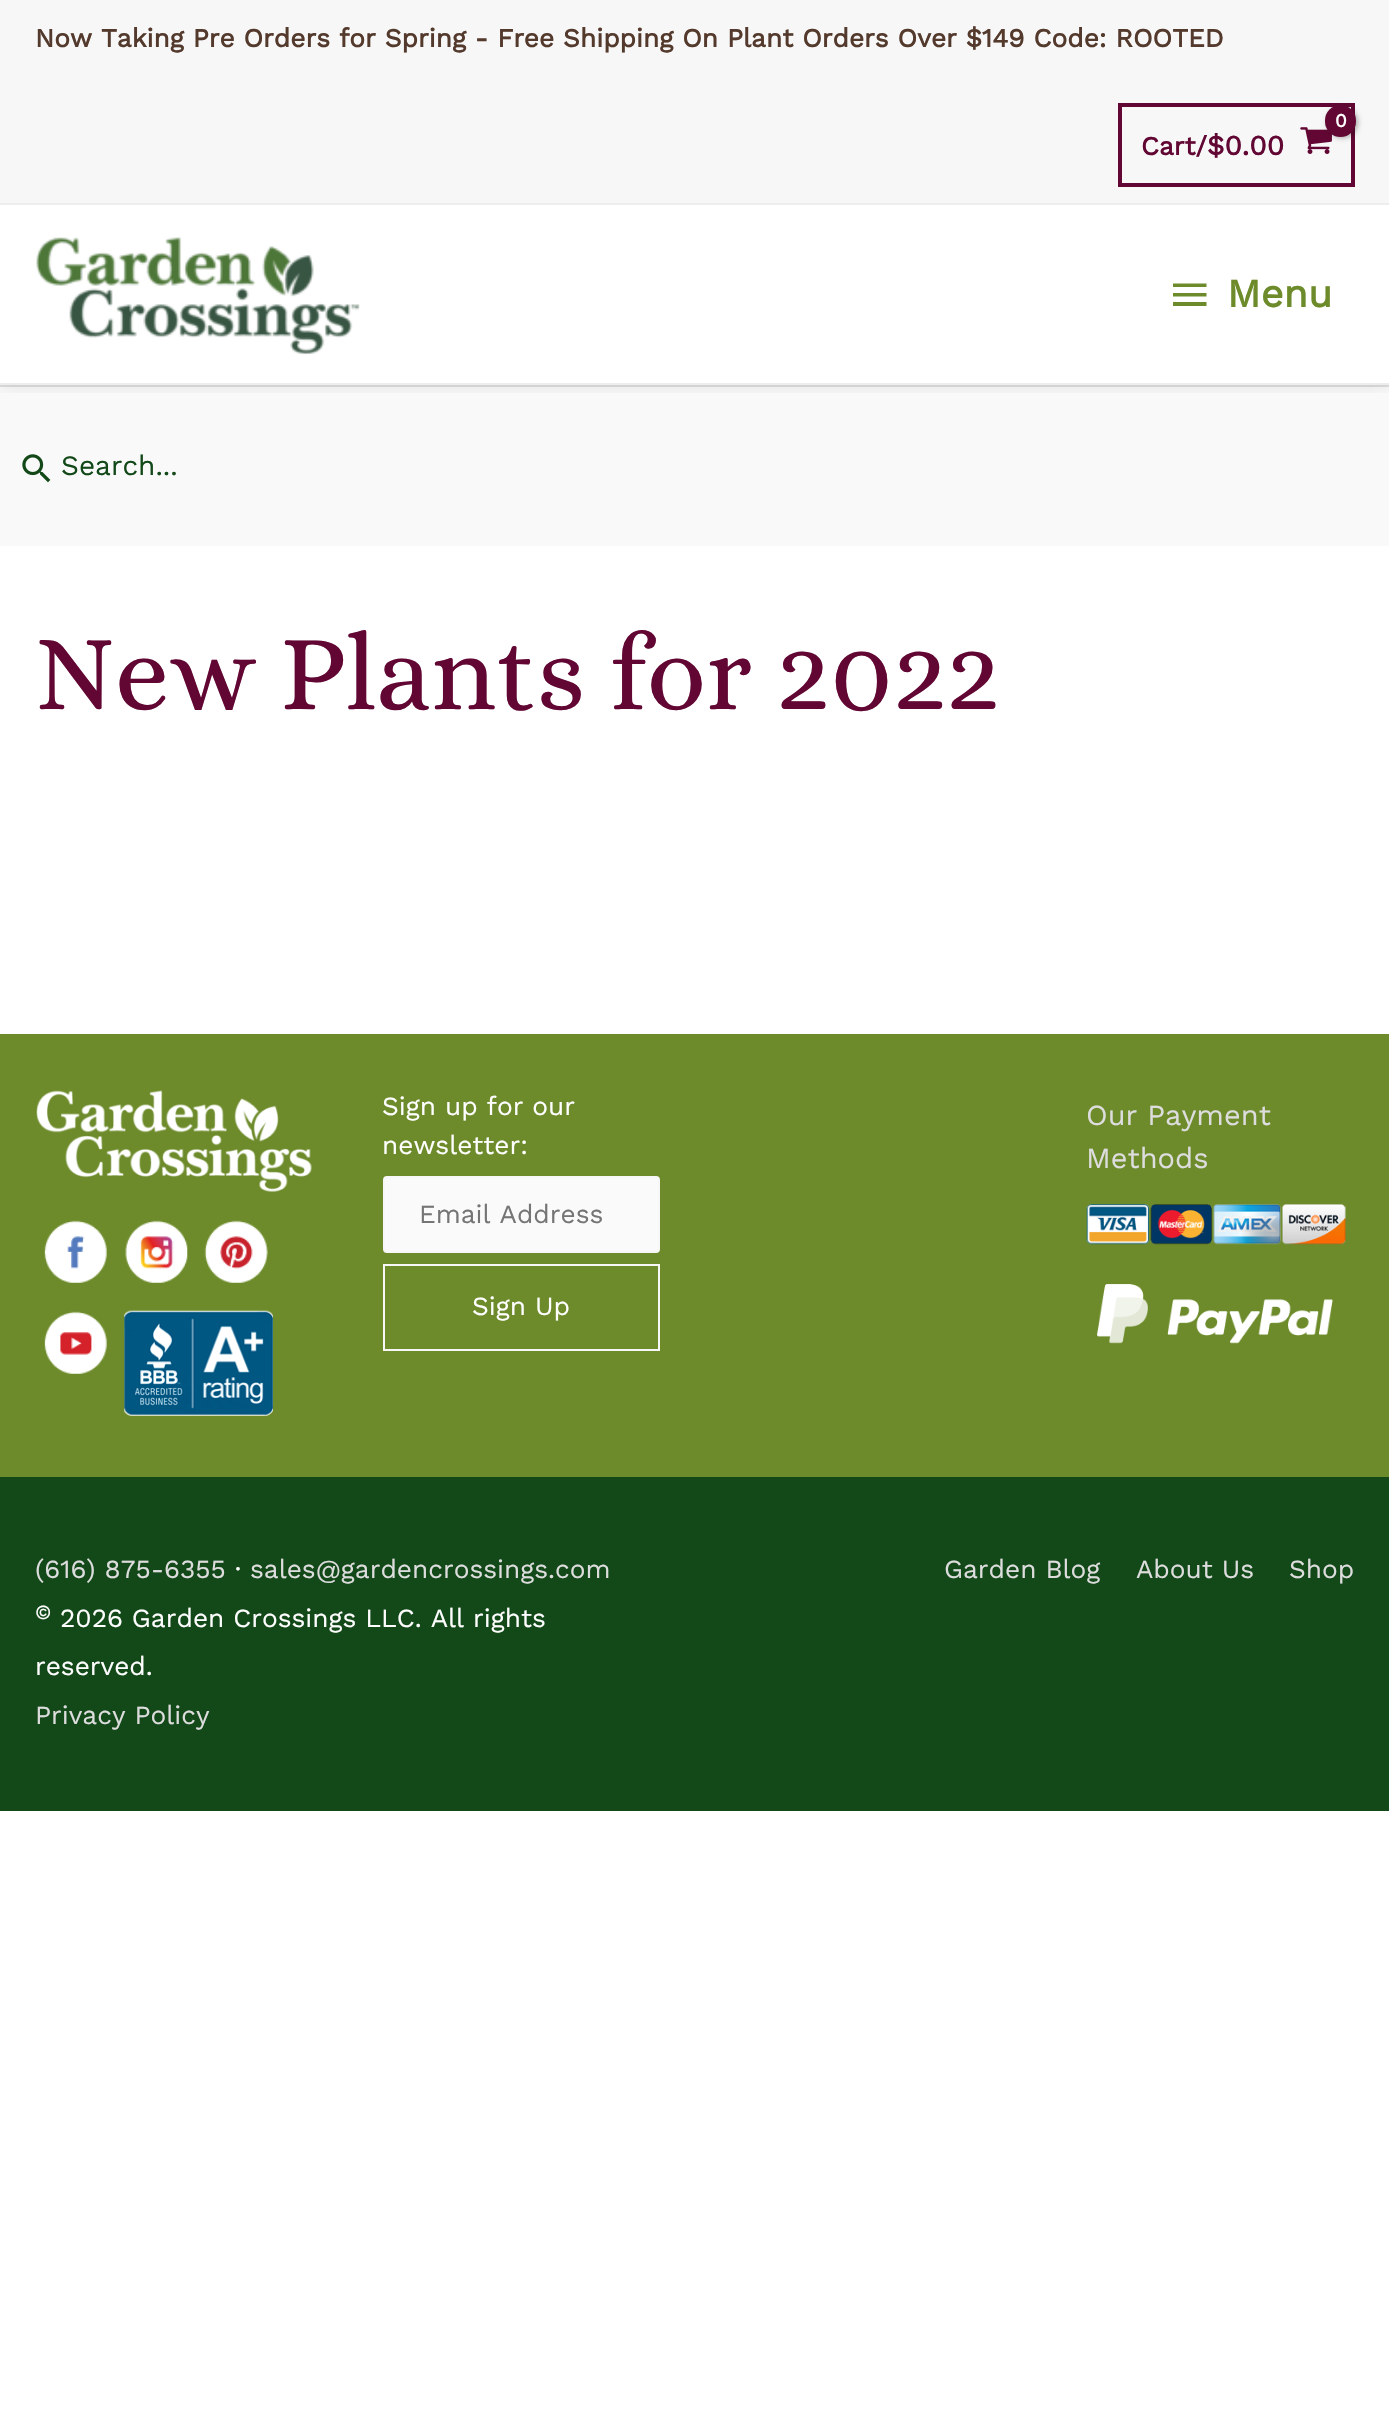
#include "include/core/SkBlurTypes.h"
#include "include/core/SkCanvas.h"
#include "include/core/SkData.h"
#include "include/core/SkFont.h"
#include "include/core/SkFontMgr.h"
#include "include/core/SkImage.h"
#include "include/core/SkMaskFilter.h"
#include "include/core/SkPaint.h"
#include "include/core/SkPathBuilder.h"
#include "include/core/SkTextBlob.h"
#include "include/effects/SkDashPathEffect.h"
#include "include/effects/SkGradientShader.h"
#include "include/utils/SkParsePath.h"

extern sk_sp<SkFontMgr> fontMgr;

static SkFont font(const char* family, int weight, float size, bool italic = false) {
    SkFontStyle style(weight, SkFontStyle::kNormal_Width,
        italic ? SkFontStyle::kItalic_Slant : SkFontStyle::kUpright_Slant);
    SkFont result(fontMgr->matchFamilyStyle(family, style), size);
    result.setSubpixel(true);
    return result;
}

static void drawLabel(SkCanvas* canvas, const char* s, float x, float y, const SkFont& font, SkColor color) {
    SkPaint ink(SkColor4f::FromColor(color));
    ink.setAntiAlias(true);
    canvas->drawString(s, x, y, font, ink);
}

static void drawTracked(SkCanvas* canvas, const char* s, float x, float y, const SkFont& font, const SkPaint& ink, float letter, float word) {
    std::vector<SkGlyphID> glyphs(font.countText(s, strlen(s), SkTextEncoding::kUTF8));
    std::vector<float> xs(glyphs.size());
    font.textToGlyphs(s, strlen(s), SkTextEncoding::kUTF8, glyphs);
    font.getXPos(glyphs, xs, x);
    float extra = 0;
    for (size_t i = 0; i < glyphs.size(); i++) {
        xs[i] += extra;
        extra += letter + word * (glyphs[i] == font.unicharToGlyph(' '));
    }
    canvas->drawTextBlob(SkTextBlob::MakeFromPosHGlyphs(glyphs, xs, y, font), 0, 0, ink);
}

static void fillRect(SkCanvas* canvas, float x, float y, float w, float h, SkColor color) {
    SkPaint ink(SkColor4f::FromColor(color));
    ink.setAntiAlias(true);
    canvas->drawRect(SkRect::MakeXYWH(x, y, w, h), ink);
}

static void fillRRect(SkCanvas* canvas, float x, float y, float w, float h, float radius, SkColor color) {
    SkPaint ink(SkColor4f::FromColor(color));
    ink.setAntiAlias(true);
    canvas->drawRoundRect(SkRect::MakeXYWH(x, y, w, h), radius, radius, ink);
}

static void drawPhoto(SkCanvas* canvas, const char* path, float x, float y, float w, float h) {
    auto image = SkImages::DeferredFromEncodedData(SkData::MakeFromFileName(path));
    canvas->drawImageRect(image, SkRect::MakeXYWH(x, y, w, h), SkSamplingOptions());
}

static SkPath parsePath(const char* data, bool evenOdd = false) {
    SkPath result = *SkParsePath::FromSVGString(data);
    if (evenOdd) result.setFillType(SkPathFillType::kEvenOdd);
    return result;
}

void draw(SkCanvas* canvas) {
    SkPaint paint;
    paint.setAntiAlias(true);
    canvas->clear(0xFFFFFFFF);
    fillRect(canvas, 0, 387, 1389, 159, 0xFFF9F9F9);
    fillRect(canvas, 0, 385, 1389, 2, 0xFFDDDDDD);
    canvas->save();
    canvas->clipRect(SkRect::MakeXYWH(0, 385, 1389, 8));
    paint.setColor(0x1A000000);
    paint.setMaskFilter(SkMaskFilter::MakeBlur(kNormal_SkBlurStyle, 9));
    canvas->drawRect(SkRect::MakeXYWH(0, 205, 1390, 180), paint);
    paint.setMaskFilter(nullptr);
    canvas->restore();
    fillRect(canvas, 0, 0, 1389, 203, 0xFFF7F7F7);
    fillRect(canvas, 0, 203, 1389, 2, 0xFFEDEDED);
    SkFont font1 = font("Work Sans", 700, 26.25f);
    drawLabel(canvas, "Now Taking Pre Orders for Spring - Free Shipping On Plant Orders Over $149 Code: ROOTED", 35, 47, font1, 0xFF543A2D);
    paint.setStroke(true);
    paint.setStrokeWidth(4);
    paint.setColor(0xFF620733);
    canvas->drawRect(SkRect::MakeXYWH(1120, 105, 233, 80), paint);
    drawPhoto(canvas, "assets/img1.png", 1300, 127, 32, 27);
    paint.setStroke(false);
    paint.setColor(0x4D000000);
    paint.setMaskFilter(SkMaskFilter::MakeBlur(kNormal_SkBlurStyle, 2.5f));
    canvas->drawRoundRect(SkRect::MakeXYWH(1327, 107, 31, 31), 15.5f, 15.5f, paint);
    paint.setMaskFilter(nullptr);
    fillRRect(canvas, 1325, 105, 31, 32, 15.5f, 0xFF620733);
    SkFont font2 = font("Work Sans", 700, 19);
    paint.setColor(0xFFFFFFFF);
    drawTracked(canvas, "0", 1335, 127, font2, paint, -1, 0);
    drawLabel(canvas, "Cart/", 1141, 155, font1, 0xFF620733);
    SkFont font3 = font("Work Sans", 700, 28);
    drawLabel(canvas, "$0.00", 1207, 155, font3, 0xFF620733);
    fillRect(canvas, 0, 383, 1389, 2, 0xFFEDEDED);
    drawPhoto(canvas, "assets/img2.png", 36, 236, 324, 119);
    paint.setColor(0xFF6D8B2B);
    canvas->drawPath(parsePath("M1173 283.5H1206.5V287H1173ZM1173 296.5V293H1206.5V296.5ZM1173 306V302H1206.5V306Z"), paint);
    SkFont font4 = font("Work Sans", 700, 39.5f);
    drawLabel(canvas, "Menu", 1227, 307, font4, 0xFF6D8B2B);
    drawPhoto(canvas, "assets/img3.png", 22, 454, 29, 29);
    SkFont font5 = font("Work Sans", 400, 28);
    drawLabel(canvas, "Search...", 61, 475, font5, 0xFF134919);
    SkFont font6 = font("Alice", 400, 108.5f);
    drawLabel(canvas, "New Plants for 2022", 35, 709, font6, 0xFF620733);
    fillRect(canvas, 0, 1034, 1389, 443, 0xFF6D8B2B);
    drawPhoto(canvas, "assets/img4.png", 36, 1090, 276, 102);
    drawPhoto(canvas, "assets/img5.png", 44, 1220, 63, 63);
    drawPhoto(canvas, "assets/img6.png", 125, 1220, 63, 63);
    drawPhoto(canvas, "assets/img7.png", 204, 1220, 64, 63);
    drawPhoto(canvas, "assets/img8.png", 44, 1311, 63, 63);
    drawPhoto(canvas, "assets/img9.png", 124, 1310, 149, 106);
    SkFont font7 = font("Work Sans", 400, 26.25f);
    drawLabel(canvas, "Sign up for our", 382, 1115, font7, 0xFFFFFFFF);
    drawLabel(canvas, "newsletter:", 382, 1154, font7, 0xFFFFFFFF);
    paint.setColor(0xFFFAFAFA);
    canvas->drawRoundRect(SkRect::MakeXYWH(384, 1177, 275, 75), 3, 3, paint);
    paint.setStroke(true);
    paint.setStrokeWidth(2);
    paint.setColor(0xFFF7F7F7);
    canvas->drawRoundRect(SkRect::MakeXYWH(384, 1177, 275, 75), 3, 3, paint);
    drawLabel(canvas, "Email Address", 419, 1223, font7, 0xFF757575);
    canvas->drawRect(SkRect::MakeXYWH(384, 1265, 275, 85), paint);
    drawLabel(canvas, "Sign Up", 472, 1315, font7, 0xFFFFFFFF);
    SkFont font8 = font("Work Sans", 400, 29);
    drawLabel(canvas, "Our Payment", 1086, 1125, font8, 0xFFDDDDDD);
    drawLabel(canvas, "Methods", 1086, 1168, font8, 0xFFDDDDDD);
    drawPhoto(canvas, "assets/img10.png", 1086, 1204, 260, 41);
    drawPhoto(canvas, "assets/img11.png", 1097, 1284, 236, 60);
    fillRect(canvas, 0, 1477, 1389, 334, 0xFF134919);
    drawLabel(canvas, "(616) 875-6355", 35, 1578, font7, 0xFFDDDDDD);
    drawLabel(canvas, "·", 235, 1578, font7, 0xFFFFFFFF);
    drawLabel(canvas, "sales@gardencrossings.com", 250, 1578, font7, 0xFFDDDDDD);
    SkFont font9 = font("Work Sans", 400, 20);
    drawLabel(canvas, "©", 35, 1619, font9, 0xFFFFFFFF);
    drawLabel(canvas, "2026 Garden Crossings LLC. All rights", 60, 1627, font7, 0xFFFFFFFF);
    drawLabel(canvas, "reserved.", 35, 1675, font7, 0xFFFFFFFF);
    drawLabel(canvas, "Privacy Policy", 35, 1724, font7, 0xFFDDDDDD);
    drawLabel(canvas, "Garden Blog", 944, 1578, font7, 0xFFDDDDDD);
    drawLabel(canvas, "About Us", 1136, 1578, font7, 0xFFDDDDDD);
    drawLabel(canvas, "Shop", 1289, 1578, font7, 0xFFDDDDDD);
}
